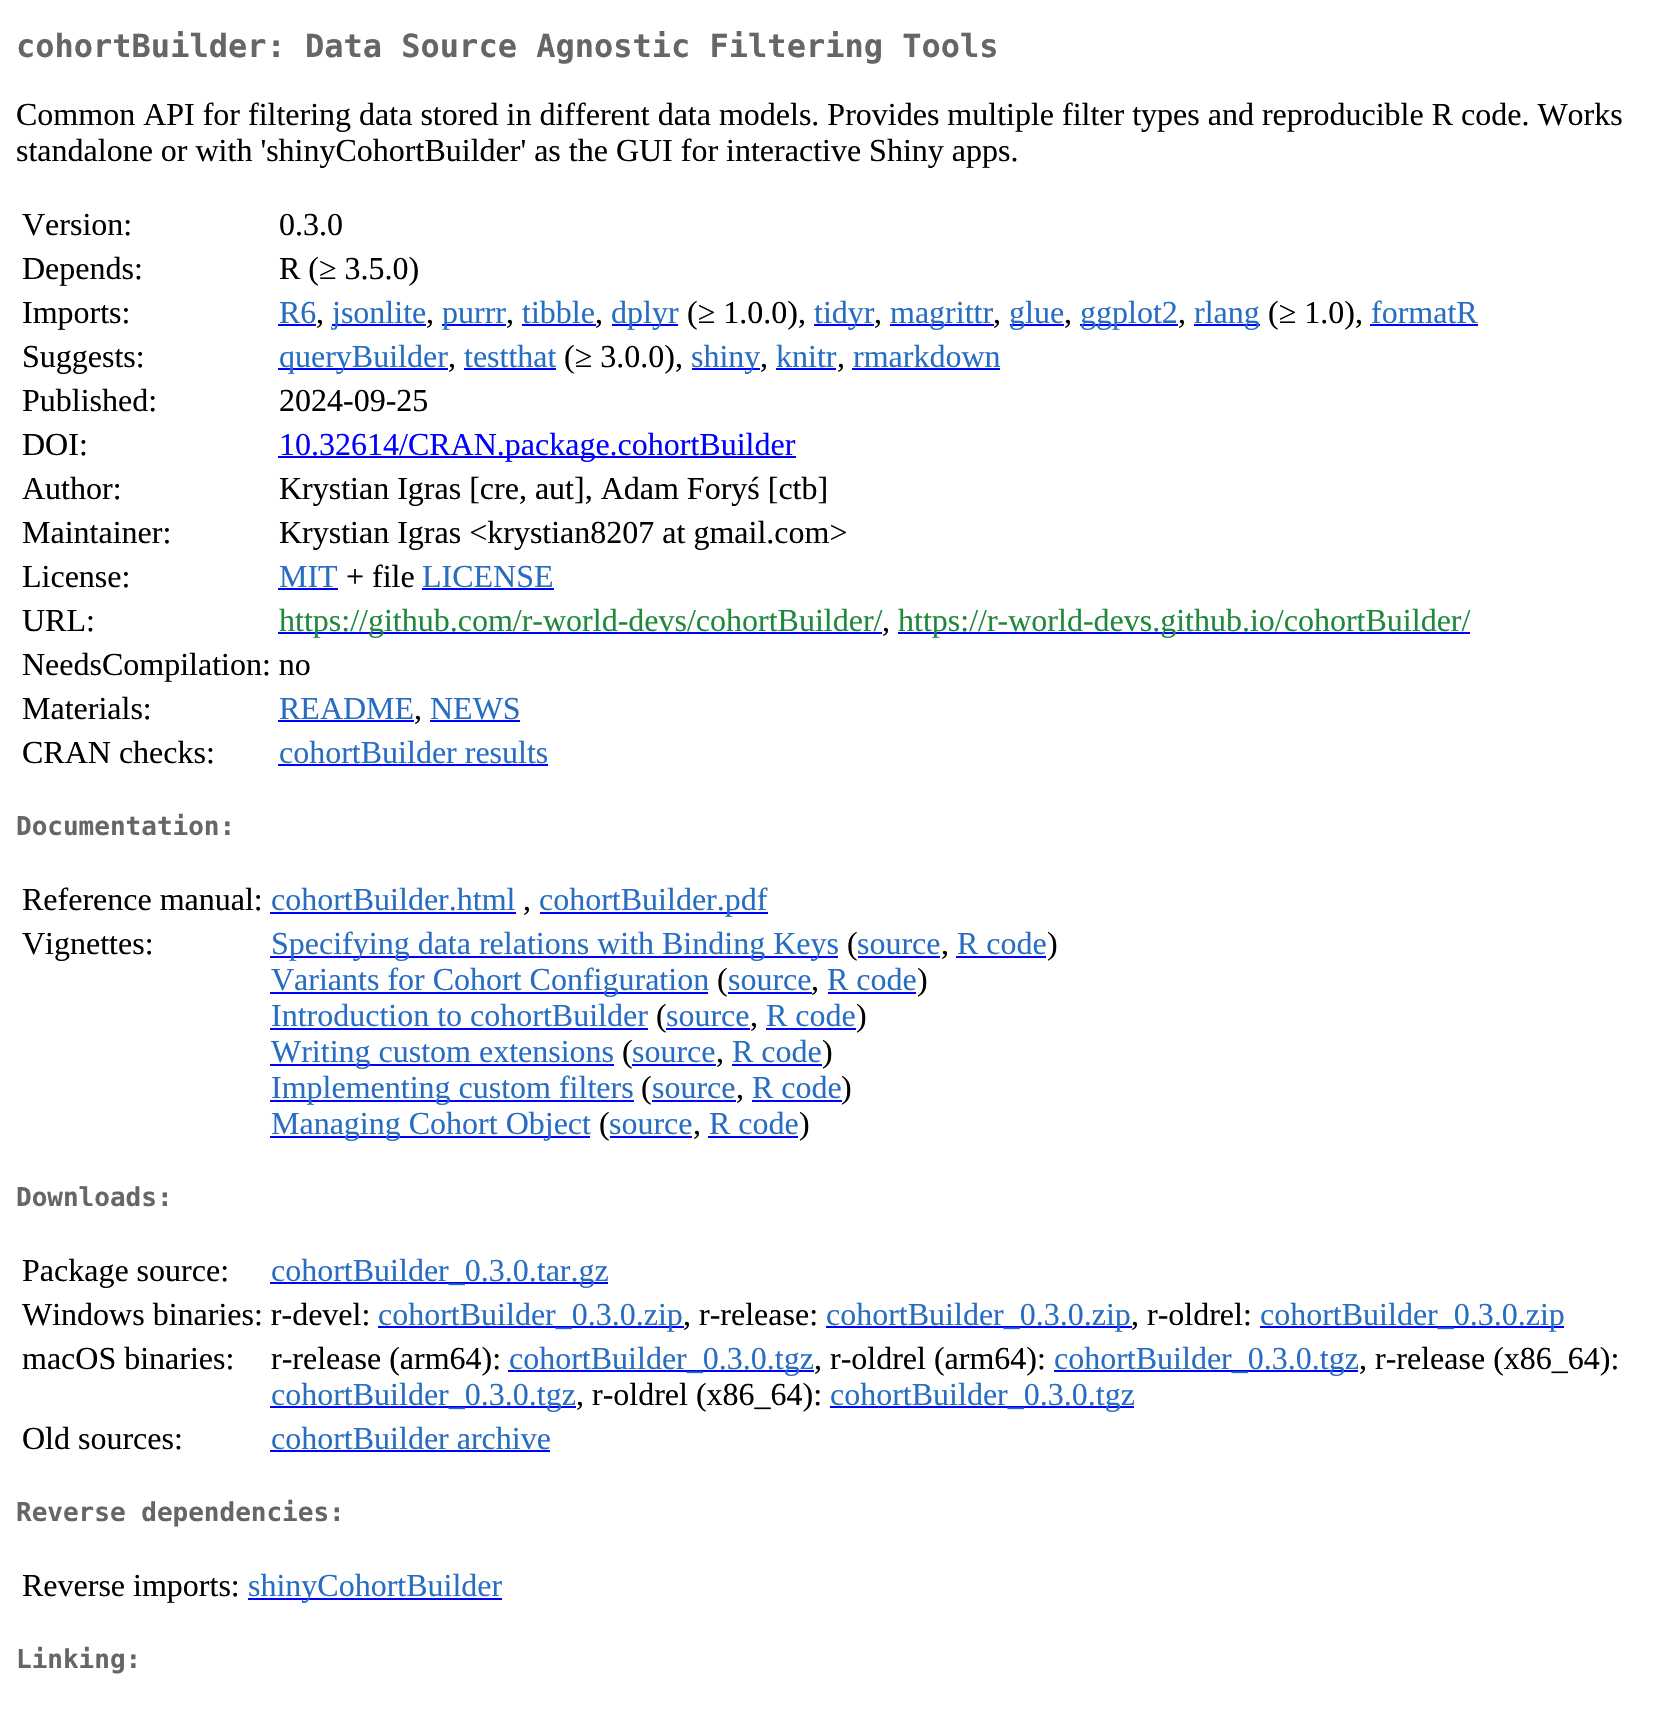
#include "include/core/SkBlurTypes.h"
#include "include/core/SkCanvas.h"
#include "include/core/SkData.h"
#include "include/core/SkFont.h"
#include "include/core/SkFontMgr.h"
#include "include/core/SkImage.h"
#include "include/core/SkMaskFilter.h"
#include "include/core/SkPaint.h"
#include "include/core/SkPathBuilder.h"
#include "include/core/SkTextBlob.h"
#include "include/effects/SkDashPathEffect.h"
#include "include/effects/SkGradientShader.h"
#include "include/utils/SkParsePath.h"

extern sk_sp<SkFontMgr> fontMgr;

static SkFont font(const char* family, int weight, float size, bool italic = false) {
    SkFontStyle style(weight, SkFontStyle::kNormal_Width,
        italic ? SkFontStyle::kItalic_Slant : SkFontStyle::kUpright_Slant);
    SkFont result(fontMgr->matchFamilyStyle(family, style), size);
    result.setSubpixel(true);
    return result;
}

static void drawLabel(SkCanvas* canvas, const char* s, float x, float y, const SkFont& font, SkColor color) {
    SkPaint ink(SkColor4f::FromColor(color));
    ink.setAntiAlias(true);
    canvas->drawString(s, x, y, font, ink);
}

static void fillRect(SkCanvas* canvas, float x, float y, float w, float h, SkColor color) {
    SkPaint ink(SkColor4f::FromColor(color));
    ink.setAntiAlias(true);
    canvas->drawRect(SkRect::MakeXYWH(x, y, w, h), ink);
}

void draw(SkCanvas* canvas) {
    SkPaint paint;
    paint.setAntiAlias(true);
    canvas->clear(0xFFFFFFFF);
    SkFont font1 = font("DejaVu Sans Mono", 700, 32);
    drawLabel(canvas, "cohortBuilder: Data Source Agnostic Filtering Tools", 16, 57, font1, 0xFF666666);
    SkFont font2 = font("Liberation Serif", 400, 32);
    drawLabel(canvas, "Common API for filtering data stored in different data models. Provides multiple filter types and reproducible R code. Works", 16, 125, font2, 0xFF000000);
    drawLabel(canvas, "standalone or with 'shinyCohortBuilder' as the GUI for interactive Shiny apps.", 16, 161, font2, 0xFF000000);
    drawLabel(canvas, "Version:", 22, 235, font2, 0xFF000000);
    drawLabel(canvas, "0.3.0", 279, 235, font2, 0xFF000000);
    drawLabel(canvas, "Depends:", 22, 279, font2, 0xFF000000);
    drawLabel(canvas, "R (≥ 3.5.0)", 279, 279, font2, 0xFF000000);
    drawLabel(canvas, "Imports:", 22, 323, font2, 0xFF000000);
    drawLabel(canvas, "R6", 279, 323, font2, 0xFF276DC3);
    fillRect(canvas, 278, 324, 38, 2, 0xFF0000FF);
    drawLabel(canvas, ",", 316, 323, font2, 0xFF000000);
    fillRect(canvas, 332, 324, 94, 2, 0xFF0000FF);
    drawLabel(canvas, "jsonlite", 332, 323, font2, 0xFF276DC3);
    drawLabel(canvas, ",", 426, 323, font2, 0xFF000000);
    fillRect(canvas, 442, 324, 64, 2, 0xFF0000FF);
    drawLabel(canvas, "purrr", 442, 323, font2, 0xFF276DC3);
    drawLabel(canvas, ",", 506, 323, font2, 0xFF000000);
    drawLabel(canvas, "tibble", 522, 323, font2, 0xFF276DC3);
    fillRect(canvas, 522, 324, 74, 2, 0xFF0000FF);
    drawLabel(canvas, ",", 595, 323, font2, 0xFF000000);
    fillRect(canvas, 612, 324, 66, 2, 0xFF0000FF);
    drawLabel(canvas, "dplyr", 611, 323, font2, 0xFF276DC3);
    drawLabel(canvas, "(≥ 1.0.0),", 687, 323, font2, 0xFF000000);
    fillRect(canvas, 814, 324, 60, 2, 0xFF0000FF);
    drawLabel(canvas, "tidyr", 814, 323, font2, 0xFF276DC3);
    drawLabel(canvas, ",", 874, 323, font2, 0xFF000000);
    fillRect(canvas, 890, 324, 104, 2, 0xFF0000FF);
    drawLabel(canvas, "magrittr", 890, 323, font2, 0xFF276DC3);
    drawLabel(canvas, ",", 993, 323, font2, 0xFF000000);
    fillRect(canvas, 1010, 324, 54, 2, 0xFF0000FF);
    drawLabel(canvas, "glue", 1009, 323, font2, 0xFF276DC3);
    drawLabel(canvas, ",", 1064, 323, font2, 0xFF000000);
    fillRect(canvas, 1080, 324, 98, 2, 0xFF0000FF);
    drawLabel(canvas, "ggplot2", 1080, 323, font2, 0xFF276DC3);
    drawLabel(canvas, ",", 1178, 323, font2, 0xFF000000);
    fillRect(canvas, 1194, 324, 66, 2, 0xFF0000FF);
    drawLabel(canvas, "rlang", 1194, 323, font2, 0xFF276DC3);
    drawLabel(canvas, "(≥ 1.0),", 1268, 323, font2, 0xFF000000);
    drawLabel(canvas, "formatR", 1371, 323, font2, 0xFF276DC3);
    fillRect(canvas, 1370, 324, 108, 2, 0xFF0000FF);
    drawLabel(canvas, "Suggests:", 22, 367, font2, 0xFF000000);
    fillRect(canvas, 278, 368, 170, 2, 0xFF0000FF);
    drawLabel(canvas, "queryBuilder", 279, 367, font2, 0xFF276DC3);
    drawLabel(canvas, ",", 448, 367, font2, 0xFF000000);
    drawLabel(canvas, "testthat", 464, 367, font2, 0xFF276DC3);
    fillRect(canvas, 464, 368, 92, 2, 0xFF0000FF);
    drawLabel(canvas, "(≥ 3.0.0),", 564, 367, font2, 0xFF000000);
    fillRect(canvas, 692, 368, 68, 2, 0xFF0000FF);
    drawLabel(canvas, "shiny", 691, 367, font2, 0xFF276DC3);
    drawLabel(canvas, ",", 760, 367, font2, 0xFF000000);
    drawLabel(canvas, "knitr", 776, 367, font2, 0xFF276DC3);
    fillRect(canvas, 776, 368, 60, 2, 0xFF0000FF);
    drawLabel(canvas, ",", 837, 367, font2, 0xFF000000);
    drawLabel(canvas, "rmarkdown", 853, 367, font2, 0xFF276DC3);
    fillRect(canvas, 852, 368, 148, 2, 0xFF0000FF);
    drawLabel(canvas, "Published:", 22, 411, font2, 0xFF000000);
    drawLabel(canvas, "2024-09-25", 279, 411, font2, 0xFF000000);
    drawLabel(canvas, "DOI:", 22, 455, font2, 0xFF000000);
    fillRect(canvas, 278, 456, 518, 2, 0xFF0000FF);
    drawLabel(canvas, "10.32614/CRAN.package.cohortBuilder", 279, 455, font2, 0xFF0000FF);
    drawLabel(canvas, "Author:", 22, 499, font2, 0xFF000000);
    drawLabel(canvas, "Krystian Igras [cre, aut], Adam Foryś [ctb]", 279, 499, font2, 0xFF000000);
    drawLabel(canvas, "Maintainer:", 22, 543, font2, 0xFF000000);
    drawLabel(canvas, "Krystian Igras <krystian8207 at gmail.com>", 279, 543, font2, 0xFF000000);
    drawLabel(canvas, "License:", 22, 587, font2, 0xFF000000);
    drawLabel(canvas, "MIT", 279, 587, font2, 0xFF276DC3);
    fillRect(canvas, 278, 588, 60, 2, 0xFF0000FF);
    drawLabel(canvas, "+ file", 346, 587, font2, 0xFF000000);
    drawLabel(canvas, "LICENSE", 422, 587, font2, 0xFF276DC3);
    fillRect(canvas, 422, 588, 132, 2, 0xFF0000FF);
    drawLabel(canvas, "URL:", 22, 631, font2, 0xFF000000);
    fillRect(canvas, 278, 632, 604, 2, 0xFF0000FF);
    drawLabel(canvas, "https://github.com/r-world-devs/cohortBuilder/", 279, 631, font2, 0xFF1F883D);
    drawLabel(canvas, ",", 882, 631, font2, 0xFF000000);
    fillRect(canvas, 898, 632, 572, 2, 0xFF0000FF);
    drawLabel(canvas, "https://r-world-devs.github.io/cohortBuilder/", 898, 631, font2, 0xFF1F883D);
    drawLabel(canvas, "NeedsCompilation: no", 22, 675, font2, 0xFF000000);
    drawLabel(canvas, "Materials:", 22, 719, font2, 0xFF000000);
    drawLabel(canvas, "README", 279, 719, font2, 0xFF276DC3);
    fillRect(canvas, 278, 720, 136, 2, 0xFF0000FF);
    drawLabel(canvas, ",", 414, 719, font2, 0xFF000000);
    drawLabel(canvas, "NEWS", 430, 719, font2, 0xFF276DC3);
    fillRect(canvas, 430, 720, 90, 2, 0xFF0000FF);
    drawLabel(canvas, "CRAN checks:", 22, 763, font2, 0xFF000000);
    drawLabel(canvas, "cohortBuilder results", 279, 763, font2, 0xFF276DC3);
    fillRect(canvas, 278, 764, 270, 2, 0xFF0000FF);
    SkFont font3 = font("DejaVu Sans Mono", 700, 26);
    drawLabel(canvas, "Documentation:", 16, 835, font3, 0xFF666666);
    drawLabel(canvas, "Reference manual:", 22, 910, font2, 0xFF000000);
    drawLabel(canvas, "cohortBuilder.html", 271, 910, font2, 0xFF276DC3);
    fillRect(canvas, 270, 912, 246, 2, 0xFF0000FF);
    drawLabel(canvas, ",", 523, 910, font2, 0xFF000000);
    fillRect(canvas, 540, 912, 228, 2, 0xFF0000FF);
    drawLabel(canvas, "cohortBuilder.pdf", 539, 910, font2, 0xFF276DC3);
    drawLabel(canvas, "Vignettes:", 22, 954, font2, 0xFF000000);
    fillRect(canvas, 270, 956, 568, 2, 0xFF0000FF);
    drawLabel(canvas, "Specifying data relations with Binding Keys", 271, 954, font2, 0xFF276DC3);
    drawLabel(canvas, "(", 847, 954, font2, 0xFF000000);
    drawLabel(canvas, "source", 857, 954, font2, 0xFF276DC3);
    fillRect(canvas, 858, 956, 82, 2, 0xFF0000FF);
    drawLabel(canvas, ",", 941, 954, font2, 0xFF000000);
    drawLabel(canvas, "R code", 957, 954, font2, 0xFF276DC3);
    fillRect(canvas, 956, 956, 90, 2, 0xFF0000FF);
    drawLabel(canvas, ")", 1047, 954, font2, 0xFF000000);
    fillRect(canvas, 270, 992, 438, 2, 0xFF0000FF);
    drawLabel(canvas, "Variants for Cohort Configuration", 271, 990, font2, 0xFF276DC3);
    drawLabel(canvas, "(", 717, 990, font2, 0xFF000000);
    drawLabel(canvas, "source", 728, 990, font2, 0xFF276DC3);
    fillRect(canvas, 728, 992, 84, 2, 0xFF0000FF);
    drawLabel(canvas, ",", 811, 990, font2, 0xFF000000);
    drawLabel(canvas, "R code", 827, 990, font2, 0xFF276DC3);
    fillRect(canvas, 828, 992, 88, 2, 0xFF0000FF);
    drawLabel(canvas, ")", 917, 990, font2, 0xFF000000);
    drawLabel(canvas, "Introduction to cohortBuilder", 271, 1026, font2, 0xFF276DC3);
    fillRect(canvas, 270, 1028, 378, 2, 0xFF0000FF);
    drawLabel(canvas, "(", 656, 1026, font2, 0xFF000000);
    drawLabel(canvas, "source", 666, 1026, font2, 0xFF276DC3);
    fillRect(canvas, 666, 1028, 84, 2, 0xFF0000FF);
    drawLabel(canvas, ",", 750, 1026, font2, 0xFF000000);
    drawLabel(canvas, "R code", 766, 1026, font2, 0xFF276DC3);
    fillRect(canvas, 766, 1028, 90, 2, 0xFF0000FF);
    drawLabel(canvas, ")", 856, 1026, font2, 0xFF000000);
    fillRect(canvas, 270, 1064, 344, 2, 0xFF0000FF);
    drawLabel(canvas, "Writing custom extensions", 271, 1062, font2, 0xFF276DC3);
    drawLabel(canvas, "(", 622, 1062, font2, 0xFF000000);
    drawLabel(canvas, "source", 632, 1062, font2, 0xFF276DC3);
    fillRect(canvas, 632, 1064, 84, 2, 0xFF0000FF);
    drawLabel(canvas, ",", 716, 1062, font2, 0xFF000000);
    drawLabel(canvas, "R code", 732, 1062, font2, 0xFF276DC3);
    fillRect(canvas, 732, 1064, 90, 2, 0xFF0000FF);
    drawLabel(canvas, ")", 822, 1062, font2, 0xFF000000);
    fillRect(canvas, 270, 1100, 364, 2, 0xFF0000FF);
    drawLabel(canvas, "Implementing custom filters", 271, 1098, font2, 0xFF276DC3);
    drawLabel(canvas, "(", 641, 1098, font2, 0xFF000000);
    drawLabel(canvas, "source", 652, 1098, font2, 0xFF276DC3);
    fillRect(canvas, 652, 1100, 84, 2, 0xFF0000FF);
    drawLabel(canvas, ",", 736, 1098, font2, 0xFF000000);
    drawLabel(canvas, "R code", 752, 1098, font2, 0xFF276DC3);
    fillRect(canvas, 752, 1100, 90, 2, 0xFF0000FF);
    drawLabel(canvas, ")", 841, 1098, font2, 0xFF000000);
    fillRect(canvas, 270, 1136, 320, 2, 0xFF0000FF);
    drawLabel(canvas, "Managing Cohort Object", 271, 1134, font2, 0xFF276DC3);
    drawLabel(canvas, "(", 599, 1134, font2, 0xFF000000);
    drawLabel(canvas, "source", 609, 1134, font2, 0xFF276DC3);
    fillRect(canvas, 610, 1136, 82, 2, 0xFF0000FF);
    drawLabel(canvas, ",", 693, 1134, font2, 0xFF000000);
    drawLabel(canvas, "R code", 709, 1134, font2, 0xFF276DC3);
    fillRect(canvas, 708, 1136, 90, 2, 0xFF0000FF);
    drawLabel(canvas, ")", 799, 1134, font2, 0xFF000000);
    drawLabel(canvas, "Downloads:", 16, 1206, font3, 0xFF666666);
    drawLabel(canvas, "Package source:", 22, 1281, font2, 0xFF000000);
    fillRect(canvas, 270, 1282, 338, 2, 0xFF0000FF);
    drawLabel(canvas, "cohortBuilder_0.3.0.tar.gz", 271, 1281, font2, 0xFF276DC3);
    drawLabel(canvas, "Windows binaries: r-devel:", 22, 1325, font2, 0xFF000000);
    fillRect(canvas, 378, 1326, 306, 2, 0xFF0000FF);
    drawLabel(canvas, "cohortBuilder_0.3.0.zip", 378, 1325, font2, 0xFF276DC3);
    drawLabel(canvas, ", r-release:", 683, 1325, font2, 0xFF000000);
    fillRect(canvas, 826, 1326, 306, 2, 0xFF0000FF);
    drawLabel(canvas, "cohortBuilder_0.3.0.zip", 826, 1325, font2, 0xFF276DC3);
    drawLabel(canvas, ", r-oldrel:", 1131, 1325, font2, 0xFF000000);
    fillRect(canvas, 1260, 1326, 304, 2, 0xFF0000FF);
    drawLabel(canvas, "cohortBuilder_0.3.0.zip", 1260, 1325, font2, 0xFF276DC3);
    drawLabel(canvas, "macOS binaries:", 22, 1369, font2, 0xFF000000);
    drawLabel(canvas, "r-release (arm64):", 271, 1369, font2, 0xFF000000);
    fillRect(canvas, 508, 1370, 306, 2, 0xFF0000FF);
    drawLabel(canvas, "cohortBuilder_0.3.0.tgz", 509, 1369, font2, 0xFF276DC3);
    drawLabel(canvas, ", r-oldrel (arm64):", 814, 1369, font2, 0xFF000000);
    fillRect(canvas, 1054, 1370, 304, 2, 0xFF0000FF);
    drawLabel(canvas, "cohortBuilder_0.3.0.tgz", 1054, 1369, font2, 0xFF276DC3);
    drawLabel(canvas, ", r-release (x86_64):", 1359, 1369, font2, 0xFF000000);
    fillRect(canvas, 270, 1406, 306, 2, 0xFF0000FF);
    drawLabel(canvas, "cohortBuilder_0.3.0.tgz", 271, 1405, font2, 0xFF276DC3);
    drawLabel(canvas, ", r-oldrel (x86_64):", 576, 1405, font2, 0xFF000000);
    fillRect(canvas, 830, 1406, 304, 2, 0xFF0000FF);
    drawLabel(canvas, "cohortBuilder_0.3.0.tgz", 830, 1405, font2, 0xFF276DC3);
    drawLabel(canvas, "Old sources:", 22, 1449, font2, 0xFF000000);
    drawLabel(canvas, "cohortBuilder archive", 271, 1449, font2, 0xFF276DC3);
    fillRect(canvas, 270, 1450, 280, 2, 0xFF0000FF);
    drawLabel(canvas, "Reverse dependencies:", 16, 1521, font3, 0xFF666666);
    drawLabel(canvas, "Reverse imports:", 22, 1596, font2, 0xFF000000);
    fillRect(canvas, 248, 1598, 254, 2, 0xFF0000FF);
    drawLabel(canvas, "shinyCohortBuilder", 248, 1596, font2, 0xFF276DC3);
    drawLabel(canvas, "Linking:", 16, 1668, font3, 0xFF666666);
}
